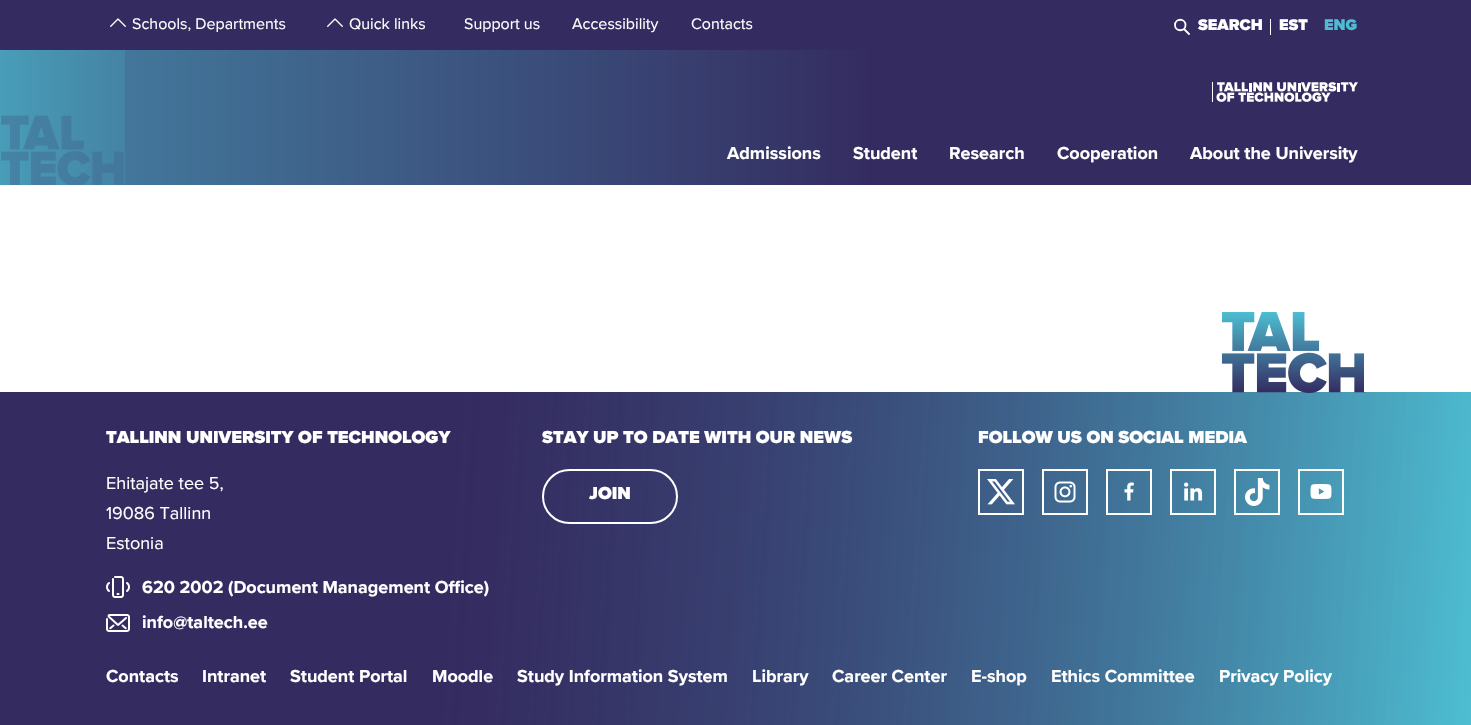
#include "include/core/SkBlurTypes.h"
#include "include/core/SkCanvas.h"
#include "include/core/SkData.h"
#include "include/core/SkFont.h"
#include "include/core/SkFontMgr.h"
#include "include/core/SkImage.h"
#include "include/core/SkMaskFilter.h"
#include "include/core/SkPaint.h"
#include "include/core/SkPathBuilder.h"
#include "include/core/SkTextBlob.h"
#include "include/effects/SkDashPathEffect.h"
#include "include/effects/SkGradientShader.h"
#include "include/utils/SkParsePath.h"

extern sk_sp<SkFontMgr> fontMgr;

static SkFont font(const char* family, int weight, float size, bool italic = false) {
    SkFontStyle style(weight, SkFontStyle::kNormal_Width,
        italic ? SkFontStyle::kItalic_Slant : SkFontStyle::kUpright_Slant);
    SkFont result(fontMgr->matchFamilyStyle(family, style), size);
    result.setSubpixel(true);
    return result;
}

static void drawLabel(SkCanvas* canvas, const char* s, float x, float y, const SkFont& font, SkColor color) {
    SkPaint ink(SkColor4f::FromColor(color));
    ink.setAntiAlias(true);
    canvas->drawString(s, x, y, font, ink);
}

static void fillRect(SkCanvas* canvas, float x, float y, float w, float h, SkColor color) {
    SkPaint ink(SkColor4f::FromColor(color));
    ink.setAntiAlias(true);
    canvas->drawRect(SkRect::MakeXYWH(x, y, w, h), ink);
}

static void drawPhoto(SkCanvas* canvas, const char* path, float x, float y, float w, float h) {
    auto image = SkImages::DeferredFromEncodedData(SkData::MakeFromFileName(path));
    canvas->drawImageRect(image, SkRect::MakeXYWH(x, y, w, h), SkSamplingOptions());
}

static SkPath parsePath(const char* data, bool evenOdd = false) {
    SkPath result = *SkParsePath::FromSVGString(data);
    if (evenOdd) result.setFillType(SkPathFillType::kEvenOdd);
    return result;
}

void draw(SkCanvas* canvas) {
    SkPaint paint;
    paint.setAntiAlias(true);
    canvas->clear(0xFFFFFFFF);
    fillRect(canvas, 0, 0, 1471, 50, 0xFF342B60);
    drawPhoto(canvas, "assets/img1.png", 110, 18, 16, 9);
    SkFont font1 = font("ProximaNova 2", 400, 16);
    drawLabel(canvas, "Schools, Departments", 132, 29, font1, 0xFFFFFFFF);
    drawPhoto(canvas, "assets/img1.png", 327, 18, 16, 9);
    drawLabel(canvas, "Quick links", 349, 29, font1, 0xFFFFFFFF);
    drawLabel(canvas, "Support us", 464, 29, font1, 0xFFFFFFFF);
    drawLabel(canvas, "Accessibility", 572, 29, font1, 0xFFFFFFFF);
    drawLabel(canvas, "Contacts", 691, 29, font1, 0xFFFFFFFF);
    paint.setStroke(true);
    paint.setStrokeWidth(1.8f);
    paint.setStrokeCap(SkPaint::kRound_Cap);
    paint.setColor(0xFFFFFFFF);
    canvas->drawPath(parsePath("M1184 29L1189 34M1185.5 25C1185.5 32 1175 32 1175 25C1175 18 1185.5 18 1185.5 25Z"), paint);
    SkFont font2 = font("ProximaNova", 400, 16);
    drawLabel(canvas, "SEARCH", 1198, 30, font2, 0xFFFFFFFF);
    fillRect(canvas, 1270, 19, 1, 16, 0xFFFFFFFF);
    drawLabel(canvas, "EST", 1279, 30, font2, 0xFFFFFFFF);
    drawLabel(canvas, "ENG", 1324, 30, font2, 0xFF4DBED2);
    paint.setStroke(false);
    {
        const SkColor colors[] = {0xFF4583A4, 0xFF342B60};
        const float stops[] = {0, 0.6f};
        const SkPoint ends[] = {{0, 118}, {1471, 117}};
        paint.setShader(SkGradientShader::MakeLinear(ends, colors, stops, 2, SkTileMode::kClamp));
        paint.setAlpha(255);
    }
    canvas->drawRect(SkRect::MakeXYWH(1, 50, 1470, 135), paint);
    drawPhoto(canvas, "assets/img2.png", 1212, 82, 146, 20);
    drawPhoto(canvas, "assets/img3.png", 0, 50, 125, 135);
    SkFont font3 = font("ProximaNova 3", 400, 18);
    drawLabel(canvas, "Admissions", 727, 159, font3, 0xFFFFFFFF);
    drawLabel(canvas, "Student", 853, 159, font3, 0xFFFFFFFF);
    drawLabel(canvas, "Research", 949, 159, font3, 0xFFFFFFFF);
    drawLabel(canvas, "Cooperation", 1057, 159, font3, 0xFFFFFFFF);
    drawLabel(canvas, "About the University", 1190, 159, font3, 0xFFFFFFFF);
    {
        const SkColor colors[] = {0xFF342B60, 0xFF4DBED2};
        const float stops[] = {0, 1};
        const SkPoint ends[] = {{-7.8f, 509}, {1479, 608}};
        paint.setShader(SkGradientShader::MakeLinear(ends, colors, stops, 2, SkTileMode::kClamp));
        paint.setAlpha(255);
    }
    canvas->drawRect(SkRect::MakeXYWH(447, 392, 1024, 333), paint);
    {
        const SkColor colors[] = {0x00342B60, 0xFF342B60};
        const float stops[] = {0, 0.69f};
        const SkPoint ends[] = {{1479, 608}, {-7.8f, 509}};
        paint.setShader(SkGradientShader::MakeLinear(ends, colors, stops, 2, SkTileMode::kClamp));
        paint.setAlpha(255);
    }
    canvas->drawRect(SkRect::MakeXYWH(0, 392, 1471, 333), paint);
    drawPhoto(canvas, "assets/img4.png", 1222, 312, 144, 81);
    fillRect(canvas, 1364, 353, 2, 39, 0xFFFFFFFF);
    SkFont font4 = font("ProximaNova", 400, 18);
    drawLabel(canvas, "TALLINN UNIVERSITY OF TECHNOLOGY", 106, 443, font4, 0xFFFFFFFF);
    SkFont font5 = font("ProximaNova 2", 400, 18);
    drawLabel(canvas, "Ehitajate tee 5,", 106, 489, font5, 0xFFFFFFFF);
    drawLabel(canvas, "19086 Tallinn", 106, 519, font5, 0xFFFFFFFF);
    drawLabel(canvas, "Estonia", 106, 549, font5, 0xFFFFFFFF);
    drawPhoto(canvas, "assets/img5.png", 106, 576, 24, 22);
    drawLabel(canvas, "620 2002 (Document Management Office)", 142, 593, font3, 0xFFFFFFFF);
    drawPhoto(canvas, "assets/img6.png", 106, 614, 24, 18);
    drawLabel(canvas, "info@taltech.ee", 142, 628, font3, 0xFFFFFFFF);
    drawLabel(canvas, "STAY UP TO DATE WITH OUR NEWS", 542, 443, font4, 0xFFFFFFFF);
    paint.setStroke(true);
    paint.setStrokeWidth(2);
    paint.setStrokeCap(SkPaint::kButt_Cap);
    paint.setShader(nullptr);
    paint.setColor(0xFFFFFFFF);
    canvas->drawRoundRect(SkRect::MakeXYWH(543, 470, 134, 53), 26.5f, 26.5f, paint);
    drawLabel(canvas, "JOIN", 589, 499, font4, 0xFFFFFFFF);
    drawLabel(canvas, "FOLLOW US ON SOCIAL MEDIA", 978, 443, font4, 0xFFFFFFFF);
    canvas->drawRect(SkRect::MakeXYWH(979, 470, 44, 44), paint);
    drawPhoto(canvas, "assets/img7.png", 987, 479, 28, 26);
    canvas->drawRect(SkRect::MakeXYWH(1043, 470, 44, 44), paint);
    drawPhoto(canvas, "assets/img8.png", 1054, 481, 22, 22);
    canvas->drawRect(SkRect::MakeXYWH(1107, 470, 44, 44), paint);
    drawPhoto(canvas, "assets/img9.png", 1124, 482, 10, 19);
    canvas->drawRect(SkRect::MakeXYWH(1171, 470, 44, 44), paint);
    drawPhoto(canvas, "assets/img10.png", 1184, 482, 19, 19);
    canvas->drawRect(SkRect::MakeXYWH(1235, 470, 44, 44), paint);
    drawPhoto(canvas, "assets/img11.png", 1245, 478, 25, 28);
    canvas->drawRect(SkRect::MakeXYWH(1299, 470, 44, 44), paint);
    drawPhoto(canvas, "assets/img12.png", 1310, 484, 22, 15);
    drawLabel(canvas, "Contacts", 106, 682, font3, 0xFFFFFFFF);
    drawLabel(canvas, "Intranet", 202, 682, font3, 0xFFFFFFFF);
    drawLabel(canvas, "Student Portal", 290, 682, font3, 0xFFFFFFFF);
    drawLabel(canvas, "Moodle", 432, 682, font3, 0xFFFFFFFF);
    drawLabel(canvas, "Study Information System", 517, 682, font3, 0xFFFFFFFF);
    drawLabel(canvas, "Library", 752, 682, font3, 0xFFFFFFFF);
    drawLabel(canvas, "Career Center", 832, 682, font3, 0xFFFFFFFF);
    drawLabel(canvas, "E-shop", 971, 682, font3, 0xFFFFFFFF);
    drawLabel(canvas, "Ethics Committee", 1051, 682, font3, 0xFFFFFFFF);
    drawLabel(canvas, "Privacy Policy", 1219, 682, font3, 0xFFFFFFFF);
}
